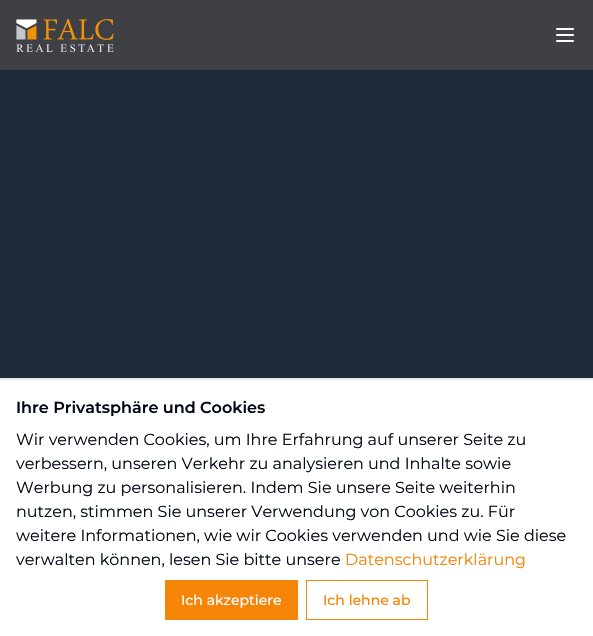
#include "include/core/SkBlurTypes.h"
#include "include/core/SkCanvas.h"
#include "include/core/SkData.h"
#include "include/core/SkFont.h"
#include "include/core/SkFontMgr.h"
#include "include/core/SkImage.h"
#include "include/core/SkMaskFilter.h"
#include "include/core/SkPaint.h"
#include "include/core/SkPathBuilder.h"
#include "include/core/SkTextBlob.h"
#include "include/effects/SkDashPathEffect.h"
#include "include/effects/SkGradientShader.h"
#include "include/utils/SkParsePath.h"

extern sk_sp<SkFontMgr> fontMgr;

static SkFont font(const char* family, int weight, float size, bool italic = false) {
    SkFontStyle style(weight, SkFontStyle::kNormal_Width,
        italic ? SkFontStyle::kItalic_Slant : SkFontStyle::kUpright_Slant);
    SkFont result(fontMgr->matchFamilyStyle(family, style), size);
    result.setSubpixel(true);
    return result;
}

static void drawLabel(SkCanvas* canvas, const char* s, float x, float y, const SkFont& font, SkColor color) {
    SkPaint ink(SkColor4f::FromColor(color));
    ink.setAntiAlias(true);
    canvas->drawString(s, x, y, font, ink);
}

static void fillRect(SkCanvas* canvas, float x, float y, float w, float h, SkColor color) {
    SkPaint ink(SkColor4f::FromColor(color));
    ink.setAntiAlias(true);
    canvas->drawRect(SkRect::MakeXYWH(x, y, w, h), ink);
}

static void drawPhoto(SkCanvas* canvas, const char* path, float x, float y, float w, float h) {
    auto image = SkImages::DeferredFromEncodedData(SkData::MakeFromFileName(path));
    canvas->drawImageRect(image, SkRect::MakeXYWH(x, y, w, h), SkSamplingOptions());
}

void draw(SkCanvas* canvas) {
    SkPaint paint;
    paint.setAntiAlias(true);
    canvas->clear(0xFF1F2937);
    fillRect(canvas, 0, 0, 593, 70, 0xFF3F3F46);
    drawPhoto(canvas, "assets/img1.png", 16, 19, 98, 34);
    drawPhoto(canvas, "assets/img2.png", 556, 28, 18, 14);
    fillRect(canvas, 0, 380, 593, 256, 0xFFFFFFFF);
    fillRect(canvas, 0, 378, 593, 2, 0xFFE2E8F0);
    SkFont font1 = font("Montserrat", 600, 16);
    drawLabel(canvas, "Ihre Privatsphäre und Cookies", 16, 413, font1, 0xFF020817);
    SkFont font2 = font("Montserrat", 400, 16);
    drawLabel(canvas, "Wir verwenden Cookies, um Ihre Erfahrung auf unserer Seite zu", 16, 445, font2, 0xFF020817);
    drawLabel(canvas, "verbessern, unseren Verkehr zu analysieren und Inhalte sowie", 16, 469, font2, 0xFF020817);
    drawLabel(canvas, "Werbung zu personalisieren. Indem Sie unsere Seite weiterhin", 16, 493, font2, 0xFF020817);
    drawLabel(canvas, "nutzen, stimmen Sie unserer Verwendung von Cookies zu. Für", 16, 517, font2, 0xFF020817);
    drawLabel(canvas, "weitere Informationen, wie wir Cookies verwenden und wie Sie diese", 16, 541, font2, 0xFF020817);
    drawLabel(canvas, "verwalten können, lesen Sie bitte unsere", 16, 565, font2, 0xFF020817);
    drawLabel(canvas, "Datenschutzerklärung", 345, 565, font2, 0xFFF48506);
    fillRect(canvas, 165, 580, 133, 40, 0xFFF48506);
    SkFont font3 = font("Montserrat", 500, 14);
    drawLabel(canvas, "Ich akzeptiere", 181, 605, font3, 0xFFF8FAFC);
    paint.setStroke(true);
    paint.setStrokeWidth(1);
    paint.setColor(0xFFF48506);
    canvas->drawRect(SkRect::MakeXYWH(306.5f, 580.5f, 121, 39), paint);
    drawLabel(canvas, "Ich lehne ab", 323, 605, font3, 0xFFF48506);
}
